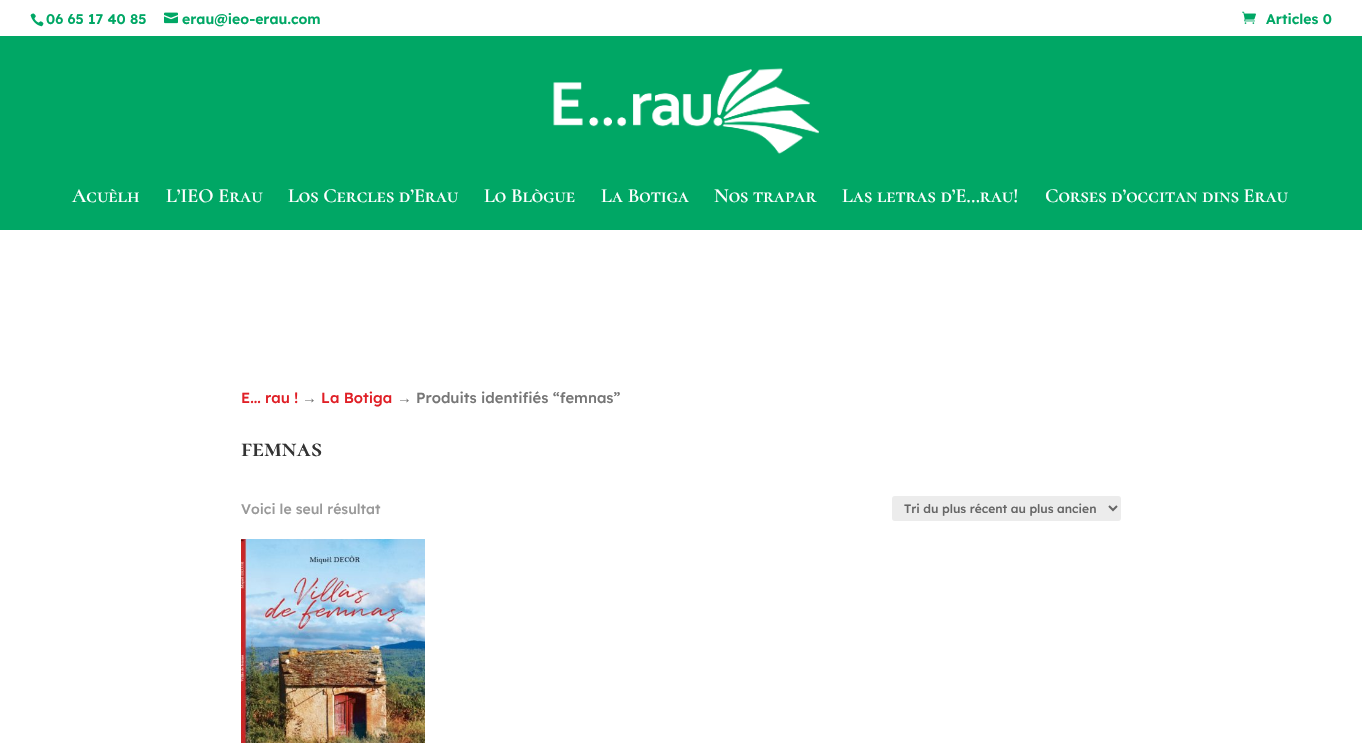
#include "include/core/SkBlurTypes.h"
#include "include/core/SkCanvas.h"
#include "include/core/SkData.h"
#include "include/core/SkFont.h"
#include "include/core/SkFontMgr.h"
#include "include/core/SkImage.h"
#include "include/core/SkMaskFilter.h"
#include "include/core/SkPaint.h"
#include "include/core/SkPathBuilder.h"
#include "include/core/SkTextBlob.h"
#include "include/effects/SkDashPathEffect.h"
#include "include/effects/SkGradientShader.h"
#include "include/utils/SkParsePath.h"

extern sk_sp<SkFontMgr> fontMgr;

static SkFont font(const char* family, int weight, float size, bool italic = false) {
    SkFontStyle style(weight, SkFontStyle::kNormal_Width,
        italic ? SkFontStyle::kItalic_Slant : SkFontStyle::kUpright_Slant);
    SkFont result(fontMgr->matchFamilyStyle(family, style), size);
    result.setSubpixel(true);
    return result;
}

static void drawLabel(SkCanvas* canvas, const char* s, float x, float y, const SkFont& font, SkColor color) {
    SkPaint ink(SkColor4f::FromColor(color));
    ink.setAntiAlias(true);
    canvas->drawString(s, x, y, font, ink);
}

static void fillRect(SkCanvas* canvas, float x, float y, float w, float h, SkColor color) {
    SkPaint ink(SkColor4f::FromColor(color));
    ink.setAntiAlias(true);
    canvas->drawRect(SkRect::MakeXYWH(x, y, w, h), ink);
}

static void fillRRect(SkCanvas* canvas, float x, float y, float w, float h, float radius, SkColor color) {
    SkPaint ink(SkColor4f::FromColor(color));
    ink.setAntiAlias(true);
    canvas->drawRoundRect(SkRect::MakeXYWH(x, y, w, h), radius, radius, ink);
}

static void drawPhoto(SkCanvas* canvas, const char* path, float x, float y, float w, float h) {
    auto image = SkImages::DeferredFromEncodedData(SkData::MakeFromFileName(path));
    canvas->drawImageRect(image, SkRect::MakeXYWH(x, y, w, h), SkSamplingOptions());
}

static SkPath parsePath(const char* data, bool evenOdd = false) {
    SkPath result = *SkParsePath::FromSVGString(data);
    if (evenOdd) result.setFillType(SkPathFillType::kEvenOdd);
    return result;
}

void draw(SkCanvas* canvas) {
    SkPaint paint;
    paint.setAntiAlias(true);
    canvas->clear(0xFFFFFFFF);
    drawPhoto(canvas, "assets/img1.png", 30, 13, 14, 14);
    SkFont font1 = font("Lexend Deca", 600, 14);
    drawLabel(canvas, "06 65 17 40 85", 46, 24, font1, 0xFF00A765);
    drawPhoto(canvas, "assets/img2.png", 164, 12, 14, 12);
    drawLabel(canvas, "erau@ieo-erau.com", 182, 24, font1, 0xFF00A765);
    drawPhoto(canvas, "assets/img3.png", 1242, 11, 14, 13);
    drawLabel(canvas, "Articles 0", 1266, 24, font1, 0xFF00A765);
    fillRect(canvas, 0, 36, 1362, 194, 0xFF00A765);
    drawPhoto(canvas, "assets/img4.png", 553, 68, 266, 86);
    SkFont font2 = font("Cormorant SC", 600, 20);
    drawLabel(canvas, "Acuèlh", 72, 202, font2, 0xFFFFFFFF);
    drawLabel(canvas, "L’IEO Erau", 166, 202, font2, 0xFFFFFFFF);
    drawLabel(canvas, "Los Cercles d’Erau", 288, 202, font2, 0xFFFFFFFF);
    drawLabel(canvas, "Lo Blògue", 484, 202, font2, 0xFFFFFFFF);
    drawLabel(canvas, "La Botiga", 601, 202, font2, 0xFFFFFFFF);
    drawLabel(canvas, "Nos trapar", 714, 202, font2, 0xFFFFFFFF);
    drawLabel(canvas, "Las letras d’E…rau!", 842, 202, font2, 0xFFFFFFFF);
    drawLabel(canvas, "Corses d’occitan dins Erau", 1045, 202, font2, 0xFFFFFFFF);
    SkFont font3 = font("Lexend Deca", 500, 14.75f);
    drawLabel(canvas, "E... rau !", 241, 403, font3, 0xFFE01F26);
    SkFont font4 = font("Liberation Sans", 400, 14.75f);
    drawLabel(canvas, "→", 302, 403, font4, 0xFF767676);
    drawLabel(canvas, "La Botiga", 321, 403, font3, 0xFFE01F26);
    drawLabel(canvas, "→", 397, 403, font4, 0xFF767676);
    drawLabel(canvas, "Produits identifiés “femnas”", 416, 403, font3, 0xFF767676);
    SkFont font5 = font("Cormorant SC", 700, 26);
    drawLabel(canvas, "femnas", 241, 456, font5, 0xFF333333);
    SkFont font6 = font("Lexend Deca", 500, 14);
    drawLabel(canvas, "Voici le seul résultat", 241, 514, font6, 0xFF999999);
    fillRRect(canvas, 892, 496, 229, 25, 3, 0xFFECECEC);
    paint.setStroke(true);
    paint.setStrokeWidth(2);
    paint.setColor(0xFF666666);
    canvas->drawPath(parsePath("M1109 506L1113 510L1117 506"), paint);
    SkFont font7 = font("Lexend Deca", 500, 12);
    drawLabel(canvas, "Tri du plus récent au plus ancien", 904, 513, font7, 0xFF666666);
    drawPhoto(canvas, "assets/img5.png", 241, 539, 184, 204);
}
